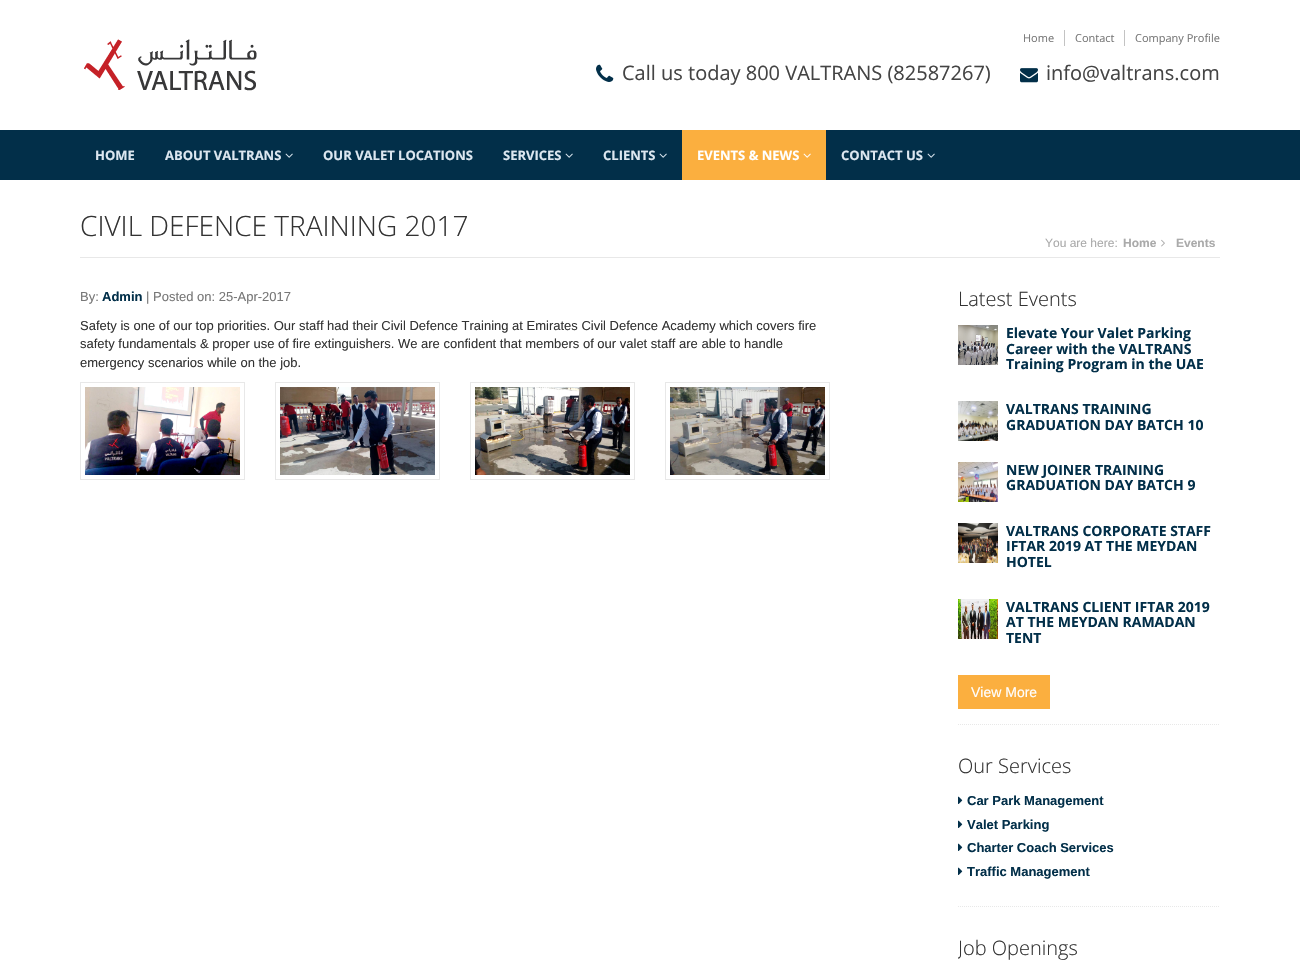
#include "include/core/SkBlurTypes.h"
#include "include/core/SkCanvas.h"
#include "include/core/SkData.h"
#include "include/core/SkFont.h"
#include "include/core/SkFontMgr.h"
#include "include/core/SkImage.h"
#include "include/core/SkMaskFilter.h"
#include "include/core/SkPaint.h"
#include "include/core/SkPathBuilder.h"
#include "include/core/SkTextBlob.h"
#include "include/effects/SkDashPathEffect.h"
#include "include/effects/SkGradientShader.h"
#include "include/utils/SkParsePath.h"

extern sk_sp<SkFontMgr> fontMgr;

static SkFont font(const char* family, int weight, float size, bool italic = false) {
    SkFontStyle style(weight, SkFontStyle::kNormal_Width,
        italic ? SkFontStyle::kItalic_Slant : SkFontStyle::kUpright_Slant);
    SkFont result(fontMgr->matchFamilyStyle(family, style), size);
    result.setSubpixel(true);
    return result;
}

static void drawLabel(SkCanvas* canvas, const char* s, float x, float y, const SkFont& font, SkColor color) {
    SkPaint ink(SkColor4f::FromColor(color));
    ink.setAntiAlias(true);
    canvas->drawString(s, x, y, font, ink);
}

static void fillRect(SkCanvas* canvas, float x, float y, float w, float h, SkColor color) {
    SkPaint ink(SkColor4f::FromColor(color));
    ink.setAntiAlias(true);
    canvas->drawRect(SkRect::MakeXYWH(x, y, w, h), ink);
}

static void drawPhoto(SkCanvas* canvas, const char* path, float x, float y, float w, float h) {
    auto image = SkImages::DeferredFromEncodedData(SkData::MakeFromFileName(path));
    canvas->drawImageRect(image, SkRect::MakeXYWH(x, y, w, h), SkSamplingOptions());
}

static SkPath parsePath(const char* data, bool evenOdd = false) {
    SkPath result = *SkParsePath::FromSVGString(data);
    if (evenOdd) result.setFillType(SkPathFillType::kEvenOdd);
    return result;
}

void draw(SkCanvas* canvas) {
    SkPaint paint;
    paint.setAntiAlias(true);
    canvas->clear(0xFFFFFFFF);
    drawPhoto(canvas, "assets/img1.png", 84, 39, 173, 52);
    fillRect(canvas, 1064, 30, 1, 16, 0xFFC3C3C3);
    SkFont font1 = font("Open Sans", 400, 11);
    drawLabel(canvas, "Home", 1023, 42, font1, 0xFF777777);
    fillRect(canvas, 1124, 30, 1, 16, 0xFFC3C3C3);
    drawLabel(canvas, "Contact", 1075, 42, font1, 0xFF777777);
    drawLabel(canvas, "Company Profile", 1135, 42, font1, 0xFF777777);
    drawPhoto(canvas, "assets/img2.png", 596, 64, 18, 18);
    SkFont font2 = font("Open Sans", 400, 20);
    drawLabel(canvas, "Call us today 800 VALTRANS (82587267)", 622, 80, font2, 0xFF444444);
    drawPhoto(canvas, "assets/img3.png", 1020, 68, 18, 15);
    drawLabel(canvas, "info@valtrans.com", 1046, 80, font2, 0xFF444444);
    fillRect(canvas, 0, 130, 1300, 50, 0xFF022F49);
    SkFont font3 = font("Open Sans", 700, 13);
    drawLabel(canvas, "HOME", 95, 160, font3, 0xFFDCE7F0);
    drawLabel(canvas, "ABOUT VALTRANS", 165, 160, font3, 0xFFDCE7F0);
    drawPhoto(canvas, "assets/img4.png", 285, 153, 8, 5);
    drawLabel(canvas, "OUR VALET LOCATIONS", 323, 160, font3, 0xFFDCE7F0);
    drawLabel(canvas, "SERVICES", 503, 160, font3, 0xFFDCE7F0);
    drawPhoto(canvas, "assets/img4.png", 565, 153, 8, 5);
    drawLabel(canvas, "CLIENTS", 603, 160, font3, 0xFFDCE7F0);
    drawPhoto(canvas, "assets/img4.png", 659, 153, 8, 5);
    fillRect(canvas, 682, 130, 144, 50, 0xFFFBAF3F);
    drawLabel(canvas, "EVENTS & NEWS", 697, 160, font3, 0xFFFFFFFF);
    drawPhoto(canvas, "assets/img5.png", 803, 153, 8, 5);
    drawLabel(canvas, "CONTACT US", 841, 160, font3, 0xFFDCE7F0);
    drawPhoto(canvas, "assets/img4.png", 927, 153, 8, 5);
    fillRect(canvas, 80, 257, 1140, 1, 0xFFE8E8E8);
    SkFont font4 = font("Open Sans", 300, 28);
    drawLabel(canvas, "CIVIL DEFENCE TRAINING 2017", 80, 236, font4, 0xFF333333);
    SkFont font5 = font("Liberation Sans", 400, 12);
    drawLabel(canvas, "You are here:", 1045, 247, font5, 0xFFAAAAAA);
    SkFont font6 = font("Liberation Sans", 700, 12);
    drawLabel(canvas, "Home", 1123, 247, font6, 0xFFAAAAAA);
    drawPhoto(canvas, "assets/img6.png", 1161, 239, 4, 8);
    drawLabel(canvas, "Events", 1176, 247, font6, 0xFFAAAAAA);
    SkFont font7 = font("Liberation Sans", 400, 13);
    drawLabel(canvas, "By:", 80, 301, font7, 0xFF777777);
    SkFont font8 = font("Liberation Sans", 700, 13);
    drawLabel(canvas, "Admin", 102, 301, font8, 0xFF022F49);
    drawLabel(canvas, "| Posted on: 25-Apr-2017", 146, 301, font7, 0xFF777777);
    drawLabel(canvas, "Safety is one of our top priorities. Our staff had their Civil Defence Training at Emirates Civil Defence Academy which covers fire", 80, 330, font7, 0xFF333333);
    drawLabel(canvas, "safety fundamentals & proper use of fire extinguishers. We are confident that members of our valet staff are able to handle", 80, 348, font7, 0xFF333333);
    drawLabel(canvas, "emergency scenarios while on the job.", 80, 367, font7, 0xFF333333);
    paint.setStroke(true);
    paint.setStrokeWidth(1);
    paint.setColor(0xFFE8E8E8);
    canvas->drawRect(SkRect::MakeXYWH(80.5f, 382.5f, 164, 97), paint);
    drawPhoto(canvas, "assets/img7.png", 85, 387, 155, 88);
    canvas->drawRect(SkRect::MakeXYWH(275.5f, 382.5f, 164, 97), paint);
    drawPhoto(canvas, "assets/img8.png", 280, 387, 155, 88);
    canvas->drawRect(SkRect::MakeXYWH(470.5f, 382.5f, 164, 97), paint);
    drawPhoto(canvas, "assets/img9.png", 475, 387, 155, 88);
    canvas->drawRect(SkRect::MakeXYWH(665.5f, 382.5f, 164, 97), paint);
    drawPhoto(canvas, "assets/img10.png", 670, 387, 155, 88);
    paint.setPathEffect(SkDashPathEffect::Make({{1, 1}}, 0));
    canvas->drawPath(parsePath("M958 724.5H1220"), paint);
    paint.setPathEffect(nullptr);
    SkFont font9 = font("Open Sans", 300, 20);
    drawLabel(canvas, "Latest Events", 958, 306, font9, 0xFF333333);
    drawPhoto(canvas, "assets/img11.png", 958, 325, 40, 40);
    SkFont font10 = font("Open Sans", 700, 14);
    drawLabel(canvas, "Elevate Your Valet Parking", 1006, 338, font10, 0xFF022F49);
    drawLabel(canvas, "Career with the VALTRANS", 1006, 354, font10, 0xFF022F49);
    drawLabel(canvas, "Training Program in the UAE", 1006, 369, font10, 0xFF022F49);
    drawPhoto(canvas, "assets/img12.png", 958, 401, 40, 40);
    drawLabel(canvas, "VALTRANS TRAINING", 1006, 414, font10, 0xFF022F49);
    drawLabel(canvas, "GRADUATION DAY BATCH 10", 1006, 430, font10, 0xFF022F49);
    drawPhoto(canvas, "assets/img13.png", 958, 462, 40, 40);
    drawLabel(canvas, "NEW JOINER TRAINING", 1006, 475, font10, 0xFF022F49);
    drawLabel(canvas, "GRADUATION DAY BATCH 9", 1006, 490, font10, 0xFF022F49);
    drawPhoto(canvas, "assets/img14.png", 958, 523, 40, 40);
    drawLabel(canvas, "VALTRANS CORPORATE STAFF", 1006, 536, font10, 0xFF022F49);
    drawLabel(canvas, "IFTAR 2019 AT THE MEYDAN", 1006, 551, font10, 0xFF022F49);
    drawLabel(canvas, "HOTEL", 1006, 567, font10, 0xFF022F49);
    drawPhoto(canvas, "assets/img15.png", 958, 599, 40, 40);
    drawLabel(canvas, "VALTRANS CLIENT IFTAR 2019", 1006, 612, font10, 0xFF022F49);
    drawLabel(canvas, "AT THE MEYDAN RAMADAN", 1006, 627, font10, 0xFF022F49);
    drawLabel(canvas, "TENT", 1006, 643, font10, 0xFF022F49);
    fillRect(canvas, 958, 675, 92, 34, 0xFFFBAF3F);
    SkFont font11 = font("Liberation Sans", 400, 14);
    drawLabel(canvas, "View More", 971, 697, font11, 0xFFFFFFFF);
    paint.setPathEffect(SkDashPathEffect::Make({{1, 1}}, 0));
    canvas->drawPath(parsePath("M958 906.5H1220"), paint);
    paint.setPathEffect(nullptr);
    drawLabel(canvas, "Our Services", 958, 773, font9, 0xFF333333);
    drawPhoto(canvas, "assets/img16.png", 958, 796, 5, 8);
    drawLabel(canvas, "Car Park Management", 967, 805, font8, 0xFF022F49);
    drawPhoto(canvas, "assets/img16.png", 958, 820, 5, 8);
    drawLabel(canvas, "Valet Parking", 967, 829, font8, 0xFF022F49);
    drawPhoto(canvas, "assets/img16.png", 958, 843, 5, 8);
    drawLabel(canvas, "Charter Coach Services", 967, 852, font8, 0xFF022F49);
    drawPhoto(canvas, "assets/img16.png", 958, 867, 5, 8);
    drawLabel(canvas, "Traffic Management", 967, 876, font8, 0xFF022F49);
    canvas->save();
    canvas->clipRect(SkRect::MakeXYWH(958, 937, 262, 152));
    drawLabel(canvas, "Job Openings", 958, 955, font9, 0xFF333333);
    canvas->restore();
}
